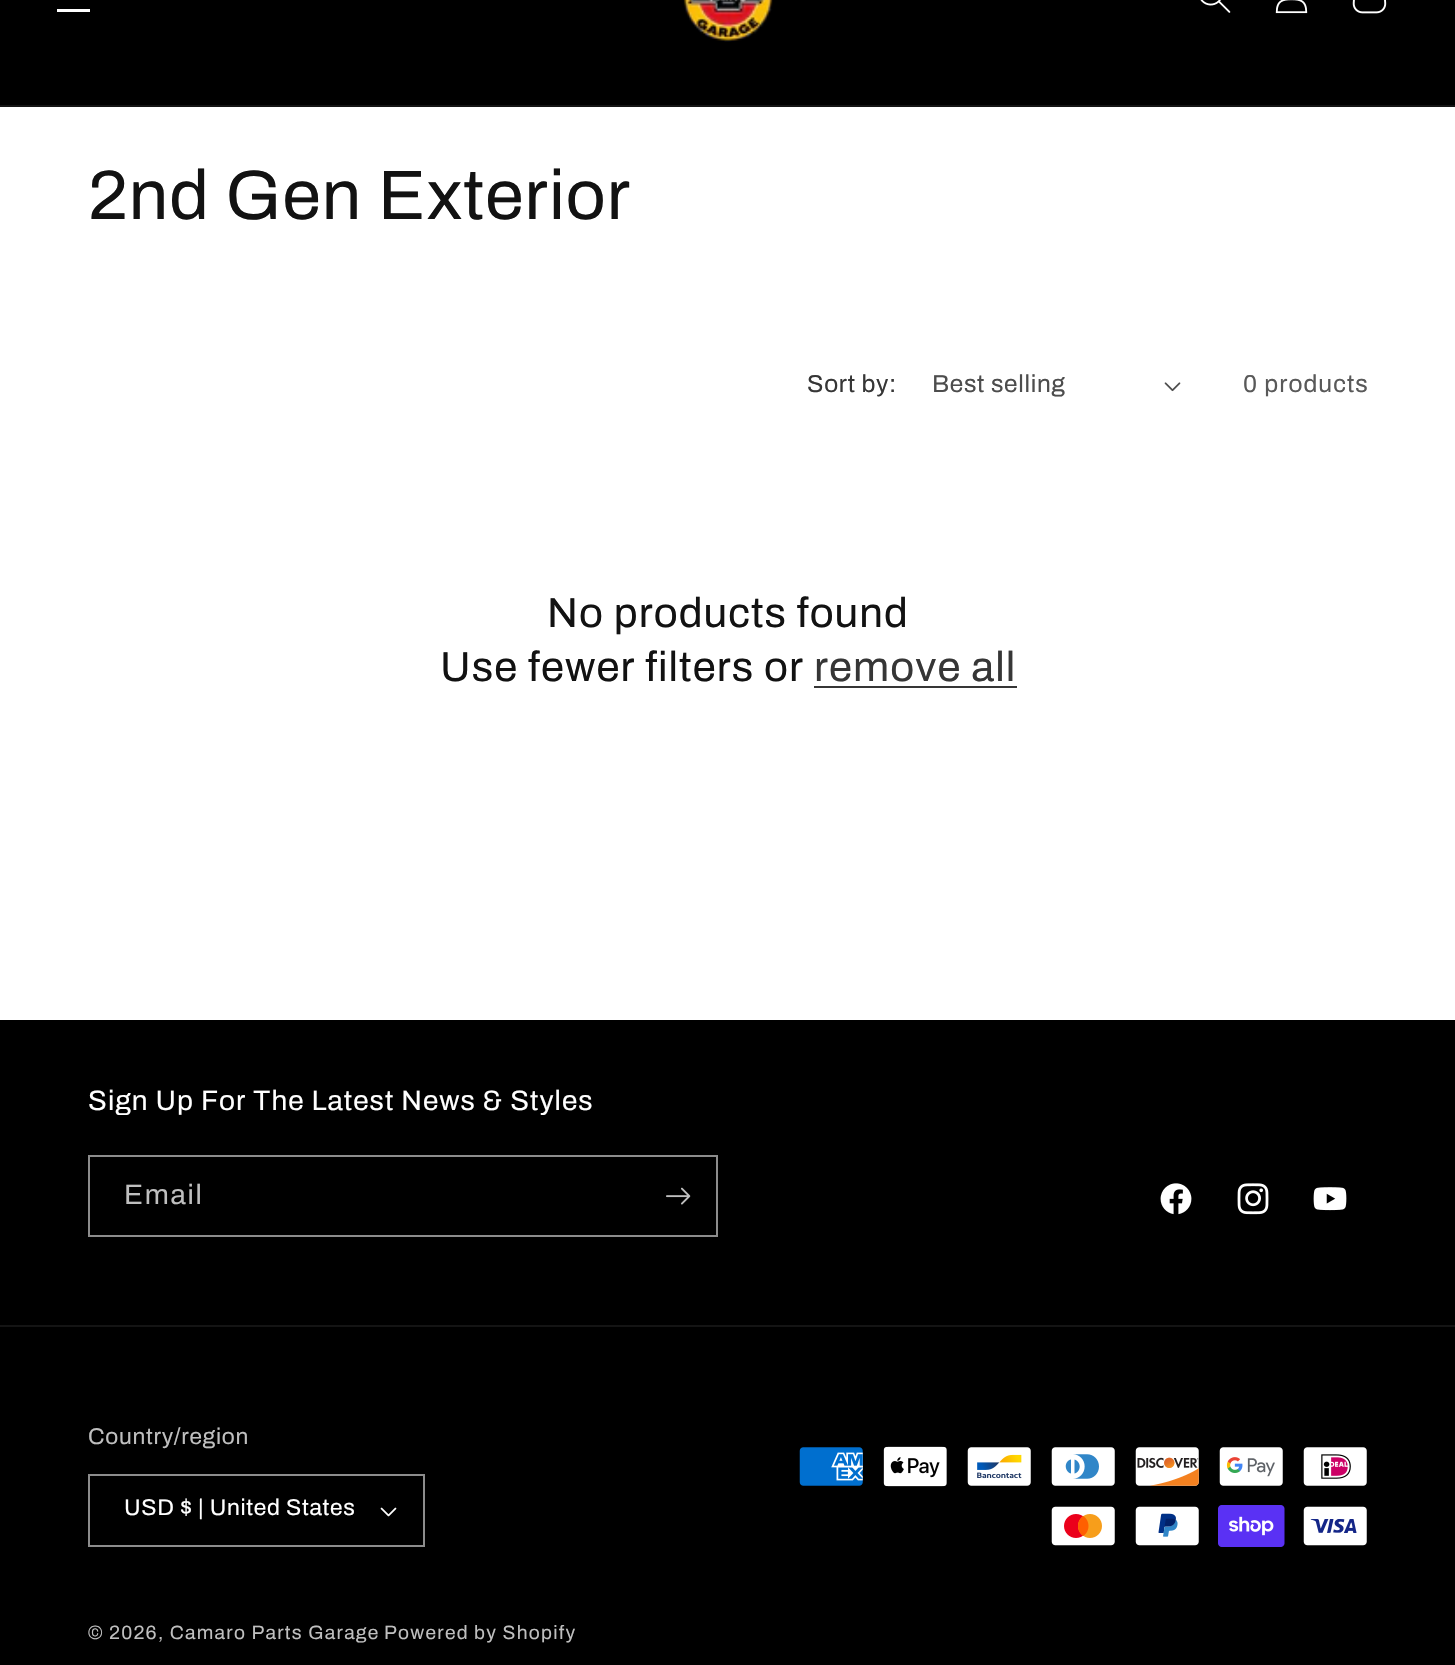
#include "include/core/SkBlurTypes.h"
#include "include/core/SkCanvas.h"
#include "include/core/SkData.h"
#include "include/core/SkFont.h"
#include "include/core/SkFontMgr.h"
#include "include/core/SkImage.h"
#include "include/core/SkMaskFilter.h"
#include "include/core/SkPaint.h"
#include "include/core/SkPathBuilder.h"
#include "include/core/SkTextBlob.h"
#include "include/effects/SkDashPathEffect.h"
#include "include/effects/SkGradientShader.h"
#include "include/utils/SkParsePath.h"

extern sk_sp<SkFontMgr> fontMgr;

static SkFont font(const char* family, int weight, float size, bool italic = false) {
    SkFontStyle style(weight, SkFontStyle::kNormal_Width,
        italic ? SkFontStyle::kItalic_Slant : SkFontStyle::kUpright_Slant);
    SkFont result(fontMgr->matchFamilyStyle(family, style), size);
    result.setSubpixel(true);
    return result;
}

static void drawTracked(SkCanvas* canvas, const char* s, float x, float y, const SkFont& font, const SkPaint& ink, float letter, float word) {
    std::vector<SkGlyphID> glyphs(font.countText(s, strlen(s), SkTextEncoding::kUTF8));
    std::vector<float> xs(glyphs.size());
    font.textToGlyphs(s, strlen(s), SkTextEncoding::kUTF8, glyphs);
    font.getXPos(glyphs, xs, x);
    float extra = 0;
    for (size_t i = 0; i < glyphs.size(); i++) {
        xs[i] += extra;
        extra += letter + word * (glyphs[i] == font.unicharToGlyph(' '));
    }
    canvas->drawTextBlob(SkTextBlob::MakeFromPosHGlyphs(glyphs, xs, y, font), 0, 0, ink);
}

static void fillRect(SkCanvas* canvas, float x, float y, float w, float h, SkColor color) {
    SkPaint ink(SkColor4f::FromColor(color));
    ink.setAntiAlias(true);
    canvas->drawRect(SkRect::MakeXYWH(x, y, w, h), ink);
}

static void drawPhoto(SkCanvas* canvas, const char* path, float x, float y, float w, float h) {
    auto image = SkImages::DeferredFromEncodedData(SkData::MakeFromFileName(path));
    canvas->drawImageRect(image, SkRect::MakeXYWH(x, y, w, h), SkSamplingOptions());
}

void draw(SkCanvas* canvas) {
    SkPaint paint;
    paint.setAntiAlias(true);
    canvas->clear(0xFFFFFFFF);
    fillRect(canvas, 0, 0, 1455, 105, 0xFF000000);
    fillRect(canvas, 0, 105, 1455, 2, 0xFF141414);
    fillRect(canvas, 57, 9, 33, 3, 0xFFFFFFFF);
    drawPhoto(canvas, "assets/img1.png", 683, 0, 90, 42);
    drawPhoto(canvas, "assets/img2.png", 1200, 0, 31, 13);
    drawPhoto(canvas, "assets/img3.png", 1275, 0, 33, 14);
    drawPhoto(canvas, "assets/img4.png", 1352, 0, 35, 14);
    SkFont font1 = font("Archivo", 400, 70);
    paint.setColor(0xFF121212);
    drawTracked(canvas, "2nd Gen Exterior", 88, 219, font1, paint, 1.05f, 0);
    SkFont font2 = font("Archivo", 400, 24.5f);
    paint.setColor(0xFF363636);
    drawTracked(canvas, "Sort by:", 807, 392, font2, paint, 0.7f, 0);
    paint.setColor(0xFF4D4D4D);
    drawTracked(canvas, "Best selling", 932, 392, font2, paint, 0.7f, 0);
    drawPhoto(canvas, "assets/img5.png", 1164, 382, 17, 10);
    paint.setColor(0xFF595959);
    drawTracked(canvas, "0 products", 1243, 392, font2, paint, 1.05f, 0);
    SkFont font3 = font("Archivo", 400, 42);
    paint.setColor(0xFF121212);
    drawTracked(canvas, "No products found", 547, 627, font3, paint, 1.05f, 0);
    drawTracked(canvas, "Use fewer filters or", 440, 681, font3, paint, 1.05f, 0);
    paint.setColor(0xFF363636);
    drawTracked(canvas, "remove all", 814, 681, font3, paint, 1.05f, 0);
    fillRect(canvas, 814, 686, 203, 2, 0xFF363636);
    fillRect(canvas, 0, 1020, 1455, 645, 0xFF000000);
    SkFont font4 = font("Archivo", 400, 28);
    paint.setColor(0xFFFFFFFF);
    drawTracked(canvas, "Sign Up For The Latest News & Styles", 88, 1110, font4, paint, 1.05f, 0);
    paint.setStroke(true);
    paint.setStrokeWidth(2);
    paint.setColor(0xFF8C8C8C);
    canvas->drawRect(SkRect::MakeXYWH(89, 1156, 628, 80), paint);
    paint.setStroke(false);
    paint.setColor(0xFFBFBFBF);
    drawTracked(canvas, "Email", 124, 1204, font4, paint, 1.75f, 0);
    drawPhoto(canvas, "assets/img6.png", 666, 1187, 25, 18);
    drawPhoto(canvas, "assets/img7.png", 1160, 1183, 32, 32);
    drawPhoto(canvas, "assets/img8.png", 1237, 1183, 32, 32);
    drawPhoto(canvas, "assets/img9.png", 1313, 1187, 34, 24);
    fillRect(canvas, 0, 1325, 1455, 2, 0xFF141414);
    SkFont font5 = font("Archivo", 400, 22.75f);
    drawTracked(canvas, "Country/region", 88, 1444, font5, paint, 0.7f, 0);
    drawPhoto(canvas, "assets/img10.png", 380, 1507, 17, 10);
    paint.setStroke(true);
    paint.setColor(0xFF8C8C8C);
    canvas->drawRect(SkRect::MakeXYWH(89, 1475, 335, 71), paint);
    paint.setStroke(false);
    paint.setColor(0xFFFFFFFF);
    drawTracked(canvas, "USD $ | United States", 124, 1515, font5, paint, 0.7f, 0);
    drawPhoto(canvas, "assets/img11.png", 799, 1447, 64, 39);
    drawPhoto(canvas, "assets/img12.png", 883, 1446, 64, 41);
    drawPhoto(canvas, "assets/img13.png", 967, 1447, 64, 39);
    drawPhoto(canvas, "assets/img14.png", 1051, 1447, 64, 39);
    drawPhoto(canvas, "assets/img15.png", 1135, 1447, 64, 39);
    drawPhoto(canvas, "assets/img16.png", 1219, 1447, 64, 39);
    drawPhoto(canvas, "assets/img17.png", 1303, 1447, 64, 39);
    drawPhoto(canvas, "assets/img18.png", 1051, 1506, 64, 40);
    drawPhoto(canvas, "assets/img19.png", 1135, 1506, 64, 40);
    drawPhoto(canvas, "assets/img20.png", 1218, 1505, 67, 42);
    drawPhoto(canvas, "assets/img21.png", 1303, 1506, 64, 40);
    SkFont font6 = font("Archivo", 400, 19.25f);
    paint.setColor(0xFFBFBFBF);
    drawTracked(canvas, "© 2026, Camaro Parts Garage", 88, 1639, font6, paint, 1.25f, 0);
    drawTracked(canvas, "Powered by Shopify", 384, 1639, font6, paint, 1.25f, 0);
}
